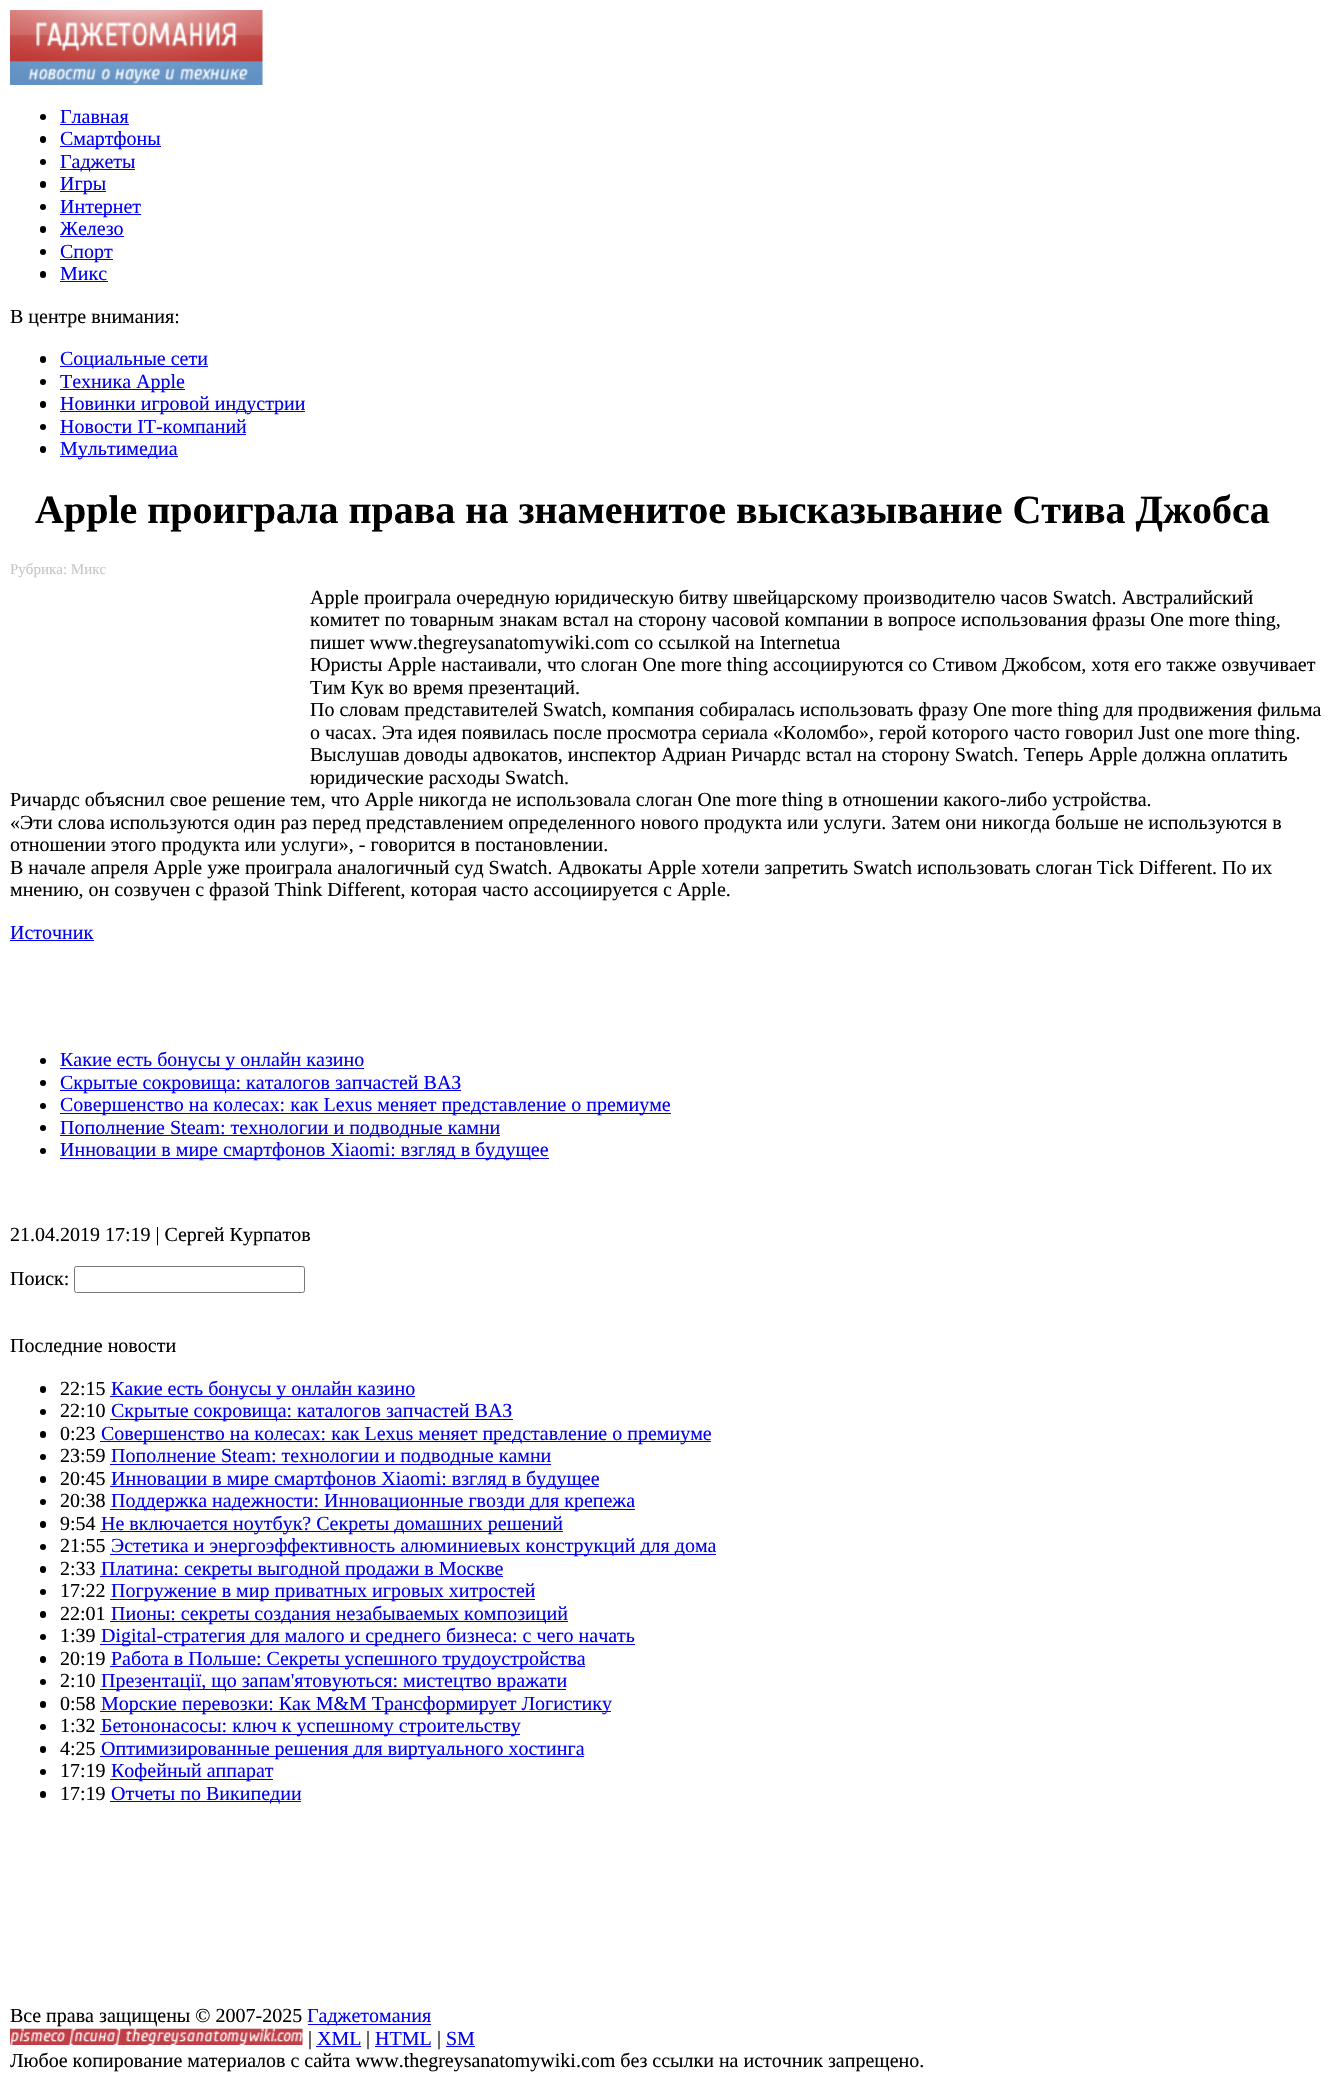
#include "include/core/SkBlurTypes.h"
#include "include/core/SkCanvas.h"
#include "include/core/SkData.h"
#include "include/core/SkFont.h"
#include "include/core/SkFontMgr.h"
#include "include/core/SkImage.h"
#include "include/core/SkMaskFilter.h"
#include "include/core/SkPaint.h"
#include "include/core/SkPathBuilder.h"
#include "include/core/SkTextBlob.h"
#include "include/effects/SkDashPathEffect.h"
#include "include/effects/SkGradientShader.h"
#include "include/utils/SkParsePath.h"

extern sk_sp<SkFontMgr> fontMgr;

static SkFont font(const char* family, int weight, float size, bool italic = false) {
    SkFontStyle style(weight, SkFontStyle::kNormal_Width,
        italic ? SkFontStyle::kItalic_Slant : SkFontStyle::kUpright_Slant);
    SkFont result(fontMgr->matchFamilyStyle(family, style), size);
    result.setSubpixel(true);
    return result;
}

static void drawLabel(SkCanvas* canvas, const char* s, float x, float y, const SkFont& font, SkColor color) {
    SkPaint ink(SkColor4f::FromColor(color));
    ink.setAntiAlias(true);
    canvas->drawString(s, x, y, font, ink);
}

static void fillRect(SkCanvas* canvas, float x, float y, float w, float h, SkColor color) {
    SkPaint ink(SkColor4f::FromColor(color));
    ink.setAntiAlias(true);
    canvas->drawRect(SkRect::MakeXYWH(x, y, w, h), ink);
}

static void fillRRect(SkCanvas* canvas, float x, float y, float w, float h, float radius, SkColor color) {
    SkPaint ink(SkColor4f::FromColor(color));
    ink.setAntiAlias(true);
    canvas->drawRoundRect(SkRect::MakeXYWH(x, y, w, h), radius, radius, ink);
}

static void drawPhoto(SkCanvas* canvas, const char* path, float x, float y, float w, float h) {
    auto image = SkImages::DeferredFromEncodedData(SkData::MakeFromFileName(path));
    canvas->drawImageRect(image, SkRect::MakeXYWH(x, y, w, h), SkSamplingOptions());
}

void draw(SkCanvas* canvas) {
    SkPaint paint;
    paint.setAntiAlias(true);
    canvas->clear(0xFFFFFFFF);
    drawPhoto(canvas, "assets/img1.png", 10, 10, 253, 75);
    paint.setColor(0xFF000000);
    canvas->drawCircle(43, 117, 3, paint);
    SkFont font1 = font("Liberation Serif", 400, 20);
    drawLabel(canvas, "Главная", 60, 123, font1, 0xFF0000EE);
    fillRect(canvas, 60, 124, 69, 1, 0xFF0000EE);
    fillRRect(canvas, 40, 136, 6, 7, 3, 0xFF000000);
    fillRect(canvas, 60, 146, 101, 1, 0xFF0000EE);
    drawLabel(canvas, "Смартфоны", 60, 145, font1, 0xFF0000EE);
    canvas->drawCircle(43, 162, 3, paint);
    fillRect(canvas, 60, 169, 75, 1, 0xFF0000EE);
    drawLabel(canvas, "Гаджеты", 60, 168, font1, 0xFF0000EE);
    fillRRect(canvas, 40, 181, 6, 7, 3, 0xFF000000);
    fillRect(canvas, 60, 191, 46, 1, 0xFF0000EE);
    drawLabel(canvas, "Игры", 60, 190, font1, 0xFF0000EE);
    canvas->drawCircle(43, 207, 3, paint);
    fillRect(canvas, 60, 214, 81, 1, 0xFF0000EE);
    drawLabel(canvas, "Интернет", 60, 213, font1, 0xFF0000EE);
    fillRRect(canvas, 40, 226, 6, 7, 3, 0xFF000000);
    drawLabel(canvas, "Железо", 60, 235, font1, 0xFF0000EE);
    fillRect(canvas, 60, 236, 64, 1, 0xFF0000EE);
    canvas->drawCircle(43, 252, 3, paint);
    fillRect(canvas, 60, 259, 53, 1, 0xFF0000EE);
    drawLabel(canvas, "Спорт", 60, 258, font1, 0xFF0000EE);
    fillRRect(canvas, 40, 271, 6, 7, 3, 0xFF000000);
    drawLabel(canvas, "Микс", 60, 280, font1, 0xFF0000EE);
    fillRect(canvas, 60, 281, 48, 1, 0xFF0000EE);
    drawLabel(canvas, "В центре внимания:", 10, 323, font1, 0xFF000000);
    fillRRect(canvas, 40, 356, 6, 7, 3, 0xFF000000);
    fillRect(canvas, 60, 366, 148, 1, 0xFF0000EE);
    drawLabel(canvas, "Социальные сети", 60, 365, font1, 0xFF0000EE);
    canvas->drawCircle(43, 382, 3, paint);
    fillRect(canvas, 60, 389, 125, 1, 0xFF0000EE);
    drawLabel(canvas, "Техника Apple", 60, 388, font1, 0xFF0000EE);
    fillRRect(canvas, 40, 401, 6, 7, 3, 0xFF000000);
    fillRect(canvas, 60, 411, 245, 1, 0xFF0000EE);
    drawLabel(canvas, "Новинки игровой индустрии", 60, 410, font1, 0xFF0000EE);
    canvas->drawCircle(43, 427, 3, paint);
    drawLabel(canvas, "Новости IT-компаний", 60, 433, font1, 0xFF0000EE);
    fillRect(canvas, 60, 434, 186, 1, 0xFF0000EE);
    fillRRect(canvas, 40, 446, 6, 7, 3, 0xFF000000);
    fillRect(canvas, 60, 456, 118, 1, 0xFF0000EE);
    drawLabel(canvas, "Мультимедиа", 60, 455, font1, 0xFF0000EE);
    SkFont font2 = font("Liberation Serif", 700, 40);
    drawLabel(canvas, "Apple проиграла права на знаменитое высказывание Стива Джобса", 35, 523, font2, 0xFF000000);
    SkFont font3 = font("Liberation Serif", 400, 15);
    drawLabel(canvas, "Рубрика: Микс", 10, 574, font3, 0xFFC6C6C6);
    drawLabel(canvas, "Apple проиграла очередную юридическую битву швейцарскому производителю часов Swatch. Австралийский", 310, 604, font1, 0xFF000000);
    drawLabel(canvas, "комитет по товарным знакам встал на сторону часовой компании в вопросе использования фразы One more thing,", 310, 626, font1, 0xFF000000);
    drawLabel(canvas, "пишет www.thegreysanatomywiki.com со ссылкой на Internetua", 310, 649, font1, 0xFF000000);
    drawLabel(canvas, "Юристы Apple настаивали, что слоган One more thing ассоциируются со Стивом Джобсом, хотя его также озвучивает", 310, 671, font1, 0xFF000000);
    drawLabel(canvas, "Тим Кук во время презентаций.", 310, 694, font1, 0xFF000000);
    drawLabel(canvas, "По словам представителей Swatch, компания собиралась использовать фразу One more thing для продвижения фильма", 310, 716, font1, 0xFF000000);
    drawLabel(canvas, "о часах. Эта идея появилась после просмотра сериала «Коломбо», герой которого часто говорил Just one more thing.", 310, 739, font1, 0xFF000000);
    drawLabel(canvas, "Выслушав доводы адвокатов, инспектор Адриан Ричардс встал на сторону Swatch. Теперь Apple должна оплатить", 310, 761, font1, 0xFF000000);
    drawLabel(canvas, "юридические расходы Swatch.", 310, 784, font1, 0xFF000000);
    drawLabel(canvas, "Ричардс объяснил свое решение тем, что Apple никогда не использовала слоган One more thing в отношении какого-либо устройства.", 10, 806, font1, 0xFF000000);
    drawLabel(canvas, "«Эти слова используются один раз перед представлением определенного нового продукта или услуги. Затем они никогда больше не используются в", 10, 829, font1, 0xFF000000);
    drawLabel(canvas, "отношении этого продукта или услуги», - говорится в постановлении.", 10, 851, font1, 0xFF000000);
    drawLabel(canvas, "В начале апреля Apple уже проиграла аналогичный суд Swatch. Адвокаты Apple хотели запретить Swatch использовать слоган Tick Different. По их", 10, 874, font1, 0xFF000000);
    drawLabel(canvas, "мнению, он созвучен с фразой Think Different, которая часто ассоциируется с Apple.", 10, 896, font1, 0xFF000000);
    drawLabel(canvas, "Источник", 10, 939, font1, 0xFF0000EE);
    fillRect(canvas, 10, 940, 84, 1, 0xFF0000EE);
    canvas->drawCircle(43, 1061, 3, paint);
    fillRect(canvas, 60, 1068, 304, 1, 0xFF0000EE);
    drawLabel(canvas, "Какие есть бонусы у онлайн казино", 60, 1066, font1, 0xFF0000EE);
    canvas->drawCircle(43, 1083, 3, paint);
    fillRect(canvas, 60, 1090, 401, 1, 0xFF0000EE);
    drawLabel(canvas, "Скрытые сокровища: каталогов запчастей ВАЗ", 60, 1089, font1, 0xFF0000EE);
    canvas->drawCircle(43, 1106, 3, paint);
    fillRect(canvas, 60, 1113, 611, 1, 0xFF0000EE);
    drawLabel(canvas, "Совершенство на колесах: как Lexus меняет представление о премиуме", 60, 1111, font1, 0xFF0000EE);
    canvas->drawCircle(43, 1128, 3, paint);
    fillRect(canvas, 60, 1135, 440, 1, 0xFF0000EE);
    drawLabel(canvas, "Пополнение Steam: технологии и подводные камни", 60, 1134, font1, 0xFF0000EE);
    canvas->drawCircle(43, 1151, 3, paint);
    fillRect(canvas, 60, 1158, 489, 1, 0xFF0000EE);
    drawLabel(canvas, "Инновации в мире смартфонов Xiaomi: взгляд в будущее", 60, 1156, font1, 0xFF0000EE);
    drawLabel(canvas, "21.04.2019 17:19 | Сергей Курпатов", 10, 1241, font1, 0xFF000000);
    drawLabel(canvas, "Поиск:", 10, 1285, font1, 0xFF000000);
    paint.setStroke(true);
    paint.setStrokeWidth(1);
    paint.setColor(0xFF767676);
    canvas->drawRoundRect(SkRect::MakeXYWH(74.5f, 1266.5f, 230, 26), 2, 2, paint);
    drawLabel(canvas, "Последние новости", 10, 1352, font1, 0xFF000000);
    fillRRect(canvas, 40, 1386, 6, 7, 3, 0xFF000000);
    drawLabel(canvas, "22:15", 60, 1395, font1, 0xFF000000);
    fillRect(canvas, 110, 1396, 305, 1, 0xFF0000EE);
    drawLabel(canvas, "Какие есть бонусы у онлайн казино", 111, 1395, font1, 0xFF0000EE);
    paint.setStroke(false);
    paint.setColor(0xFF000000);
    canvas->drawCircle(43, 1412, 3, paint);
    drawLabel(canvas, "22:10", 60, 1417, font1, 0xFF000000);
    fillRect(canvas, 110, 1419, 403, 1, 0xFF0000EE);
    drawLabel(canvas, "Скрытые сокровища: каталогов запчастей ВАЗ", 111, 1417, font1, 0xFF0000EE);
    fillRRect(canvas, 40, 1431, 6, 7, 3, 0xFF000000);
    drawLabel(canvas, "0:23", 60, 1440, font1, 0xFF000000);
    fillRect(canvas, 100, 1441, 611, 1, 0xFF0000EE);
    drawLabel(canvas, "Совершенство на колесах: как Lexus меняет представление о премиуме", 101, 1440, font1, 0xFF0000EE);
    canvas->drawCircle(43, 1457, 3, paint);
    drawLabel(canvas, "23:59", 60, 1462, font1, 0xFF000000);
    fillRect(canvas, 110, 1464, 441, 1, 0xFF0000EE);
    drawLabel(canvas, "Пополнение Steam: технологии и подводные камни", 111, 1462, font1, 0xFF0000EE);
    fillRRect(canvas, 40, 1476, 6, 7, 3, 0xFF000000);
    drawLabel(canvas, "20:45", 60, 1485, font1, 0xFF000000);
    fillRect(canvas, 110, 1486, 489, 1, 0xFF0000EE);
    drawLabel(canvas, "Инновации в мире смартфонов Xiaomi: взгляд в будущее", 111, 1485, font1, 0xFF0000EE);
    canvas->drawCircle(43, 1502, 3, paint);
    drawLabel(canvas, "20:38", 60, 1507, font1, 0xFF000000);
    fillRect(canvas, 110, 1509, 525, 1, 0xFF0000EE);
    drawLabel(canvas, "Поддержка надежности: Инновационные гвозди для крепежа", 111, 1507, font1, 0xFF0000EE);
    fillRRect(canvas, 40, 1521, 6, 7, 3, 0xFF000000);
    drawLabel(canvas, "9:54", 60, 1530, font1, 0xFF000000);
    fillRect(canvas, 100, 1531, 463, 1, 0xFF0000EE);
    drawLabel(canvas, "Не включается ноутбук? Секреты домашних решений", 101, 1530, font1, 0xFF0000EE);
    canvas->drawCircle(43, 1547, 3, paint);
    drawLabel(canvas, "21:55", 60, 1552, font1, 0xFF000000);
    fillRect(canvas, 110, 1554, 606, 1, 0xFF0000EE);
    drawLabel(canvas, "Эстетика и энергоэффективность алюминиевых конструкций для дома", 111, 1552, font1, 0xFF0000EE);
    fillRRect(canvas, 40, 1566, 6, 7, 3, 0xFF000000);
    drawLabel(canvas, "2:33", 60, 1575, font1, 0xFF000000);
    fillRect(canvas, 100, 1576, 403, 1, 0xFF0000EE);
    drawLabel(canvas, "Платина: секреты выгодной продажи в Москве", 101, 1575, font1, 0xFF0000EE);
    canvas->drawCircle(43, 1592, 3, paint);
    drawLabel(canvas, "17:22", 60, 1597, font1, 0xFF000000);
    fillRect(canvas, 110, 1599, 425, 1, 0xFF0000EE);
    drawLabel(canvas, "Погружение в мир приватных игровых хитростей", 111, 1597, font1, 0xFF0000EE);
    fillRRect(canvas, 40, 1611, 6, 7, 3, 0xFF000000);
    drawLabel(canvas, "22:01", 60, 1620, font1, 0xFF000000);
    fillRect(canvas, 110, 1621, 458, 1, 0xFF0000EE);
    drawLabel(canvas, "Пионы: секреты создания незабываемых композиций", 111, 1620, font1, 0xFF0000EE);
    canvas->drawCircle(43, 1637, 3, paint);
    drawLabel(canvas, "1:39", 60, 1642, font1, 0xFF000000);
    fillRect(canvas, 100, 1644, 535, 1, 0xFF0000EE);
    drawLabel(canvas, "Digital-стратегия для малого и среднего бизнеса: с чего начать", 101, 1642, font1, 0xFF0000EE);
    fillRRect(canvas, 40, 1656, 6, 7, 3, 0xFF000000);
    drawLabel(canvas, "20:19", 60, 1665, font1, 0xFF000000);
    fillRect(canvas, 110, 1666, 475, 1, 0xFF0000EE);
    drawLabel(canvas, "Работа в Польше: Секреты успешного трудоустройства", 111, 1665, font1, 0xFF0000EE);
    canvas->drawCircle(43, 1682, 3, paint);
    drawLabel(canvas, "2:10", 60, 1687, font1, 0xFF000000);
    fillRect(canvas, 100, 1689, 466, 1, 0xFF0000EE);
    drawLabel(canvas, "Презентації, що запам'ятовуються: мистецтво вражати", 101, 1687, font1, 0xFF0000EE);
    fillRRect(canvas, 40, 1701, 6, 7, 3, 0xFF000000);
    drawLabel(canvas, "0:58", 60, 1710, font1, 0xFF000000);
    fillRect(canvas, 100, 1711, 511, 1, 0xFF0000EE);
    drawLabel(canvas, "Морские перевозки: Как M&M Трансформирует Логистику", 101, 1710, font1, 0xFF0000EE);
    canvas->drawCircle(43, 1727, 3, paint);
    drawLabel(canvas, "1:32", 60, 1732, font1, 0xFF000000);
    fillRect(canvas, 100, 1734, 420, 1, 0xFF0000EE);
    drawLabel(canvas, "Бетононасосы: ключ к успешному строительству", 101, 1732, font1, 0xFF0000EE);
    fillRRect(canvas, 40, 1746, 6, 7, 3, 0xFF000000);
    drawLabel(canvas, "4:25", 60, 1755, font1, 0xFF000000);
    fillRect(canvas, 100, 1756, 484, 1, 0xFF0000EE);
    drawLabel(canvas, "Оптимизированные решения для виртуального хостинга", 101, 1755, font1, 0xFF0000EE);
    canvas->drawCircle(43, 1772, 3, paint);
    drawLabel(canvas, "17:19", 60, 1777, font1, 0xFF000000);
    fillRect(canvas, 110, 1779, 163, 1, 0xFF0000EE);
    drawLabel(canvas, "Кофейный аппарат", 111, 1777, font1, 0xFF0000EE);
    fillRRect(canvas, 40, 1791, 6, 7, 3, 0xFF000000);
    drawLabel(canvas, "17:19", 60, 1800, font1, 0xFF000000);
    fillRect(canvas, 110, 1801, 191, 1, 0xFF0000EE);
    drawLabel(canvas, "Отчеты по Википедии", 111, 1800, font1, 0xFF0000EE);
    drawLabel(canvas, "Все права защищены © 2007-2025", 10, 2022, font1, 0xFF000000);
    fillRect(canvas, 308, 2024, 123, 1, 0xFF0000EE);
    drawLabel(canvas, "Гаджетомания", 307, 2022, font1, 0xFF0000EE);
    drawPhoto(canvas, "assets/img2.png", 10, 2028, 293, 17);
    drawLabel(canvas, "|", 308, 2045, font1, 0xFF000000);
    drawLabel(canvas, "XML", 317, 2045, font1, 0xFF0000EE);
    fillRect(canvas, 316, 2046, 45, 1, 0xFF0000EE);
    drawLabel(canvas, "|", 366, 2045, font1, 0xFF000000);
    drawLabel(canvas, "HTML", 375, 2045, font1, 0xFF0000EE);
    fillRect(canvas, 375, 2046, 56, 1, 0xFF0000EE);
    drawLabel(canvas, "|", 437, 2045, font1, 0xFF000000);
    drawLabel(canvas, "SM", 446, 2045, font1, 0xFF0000EE);
    fillRect(canvas, 446, 2046, 29, 1, 0xFF0000EE);
    drawLabel(canvas, "Любое копирование материалов с сайта www.thegreysanatomywiki.com без ссылки на источник запрещено.", 10, 2067, font1, 0xFF000000);
}
